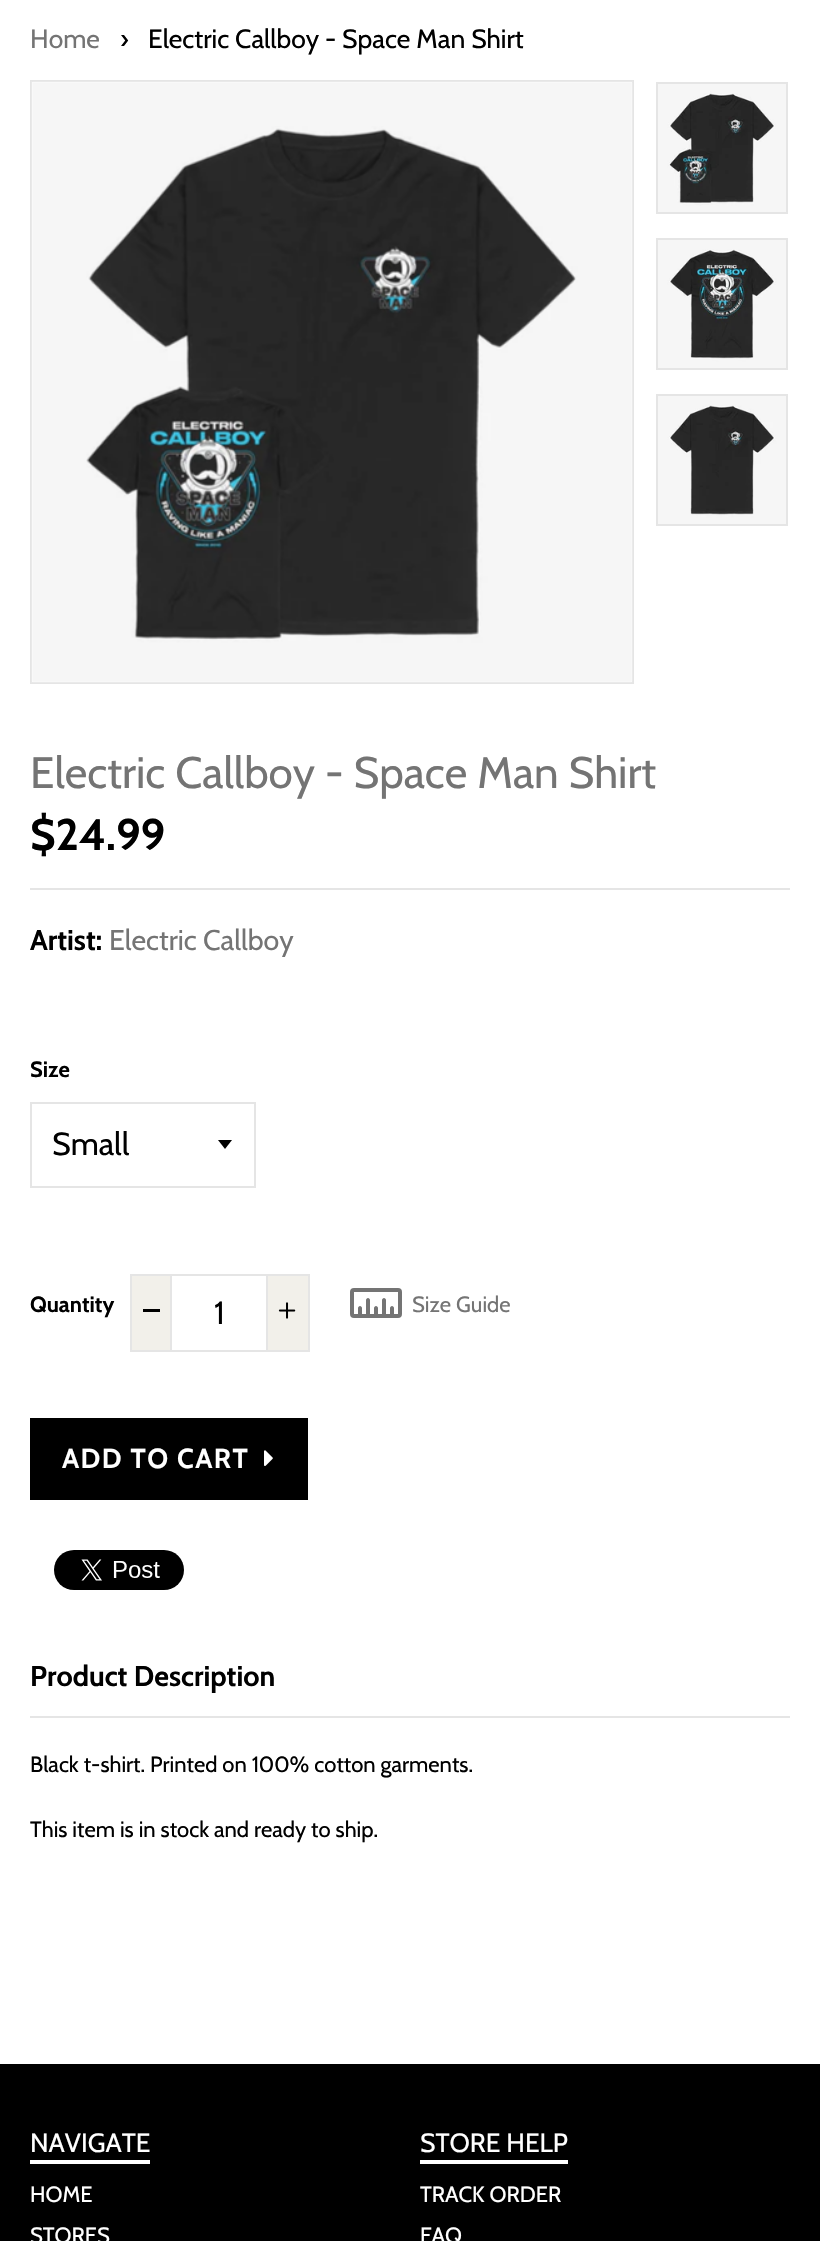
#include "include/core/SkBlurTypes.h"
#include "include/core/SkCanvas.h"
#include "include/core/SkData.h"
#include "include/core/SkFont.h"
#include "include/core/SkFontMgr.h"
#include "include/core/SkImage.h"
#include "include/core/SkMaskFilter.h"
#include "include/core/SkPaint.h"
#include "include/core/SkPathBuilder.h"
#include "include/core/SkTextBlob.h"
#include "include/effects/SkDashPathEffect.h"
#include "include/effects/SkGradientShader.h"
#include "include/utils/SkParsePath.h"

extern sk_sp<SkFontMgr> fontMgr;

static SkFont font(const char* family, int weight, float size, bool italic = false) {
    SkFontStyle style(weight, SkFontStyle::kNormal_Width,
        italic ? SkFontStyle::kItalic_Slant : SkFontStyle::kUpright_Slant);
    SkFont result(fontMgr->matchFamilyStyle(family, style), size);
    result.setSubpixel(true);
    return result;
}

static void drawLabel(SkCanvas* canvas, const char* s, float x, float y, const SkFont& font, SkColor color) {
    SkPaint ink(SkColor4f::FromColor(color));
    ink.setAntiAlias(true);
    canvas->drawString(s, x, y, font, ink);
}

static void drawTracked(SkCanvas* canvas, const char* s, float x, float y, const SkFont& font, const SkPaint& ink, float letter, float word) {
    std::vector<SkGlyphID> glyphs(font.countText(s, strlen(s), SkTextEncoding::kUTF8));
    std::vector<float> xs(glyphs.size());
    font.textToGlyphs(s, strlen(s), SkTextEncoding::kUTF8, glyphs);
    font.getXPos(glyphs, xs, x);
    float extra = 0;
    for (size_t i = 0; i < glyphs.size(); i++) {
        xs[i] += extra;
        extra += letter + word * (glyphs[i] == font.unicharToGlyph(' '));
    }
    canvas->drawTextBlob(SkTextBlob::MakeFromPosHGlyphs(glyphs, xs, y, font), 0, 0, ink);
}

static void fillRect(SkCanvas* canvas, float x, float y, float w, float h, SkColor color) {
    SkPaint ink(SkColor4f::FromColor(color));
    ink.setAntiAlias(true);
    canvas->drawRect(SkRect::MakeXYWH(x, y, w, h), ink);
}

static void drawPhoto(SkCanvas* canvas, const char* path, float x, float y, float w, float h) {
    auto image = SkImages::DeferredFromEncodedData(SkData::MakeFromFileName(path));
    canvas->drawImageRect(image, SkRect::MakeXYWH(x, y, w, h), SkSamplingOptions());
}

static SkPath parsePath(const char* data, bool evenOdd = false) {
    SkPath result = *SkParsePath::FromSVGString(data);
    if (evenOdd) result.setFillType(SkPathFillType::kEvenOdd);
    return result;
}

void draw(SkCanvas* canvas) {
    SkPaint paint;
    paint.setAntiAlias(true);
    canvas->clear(0xFFFFFFFF);
    SkFont font1 = font("Cabin", 400, 26.4f);
    drawLabel(canvas, "Home", 30, 48, font1, 0xFF747474);
    drawLabel(canvas, "›", 120, 48, font1, 0xFF000000);
    drawLabel(canvas, "Electric Callboy - Space Man Shirt", 148, 48, font1, 0xFF000000);
    paint.setStroke(true);
    paint.setStrokeWidth(2);
    paint.setColor(0xFFE5E5E5);
    canvas->drawRect(SkRect::MakeXYWH(31, 81, 602, 602), paint);
    drawPhoto(canvas, "assets/img1.png", 31, 81, 602, 602);
    canvas->drawRect(SkRect::MakeXYWH(657, 83, 130, 130), paint);
    drawPhoto(canvas, "assets/img2.png", 658, 84, 128, 128);
    canvas->drawRect(SkRect::MakeXYWH(657, 239, 130, 130), paint);
    drawPhoto(canvas, "assets/img3.png", 658, 240, 128, 128);
    canvas->drawRect(SkRect::MakeXYWH(657, 395, 130, 130), paint);
    drawPhoto(canvas, "assets/img4.png", 658, 396, 128, 128);
    SkFont font2 = font("Cabin", 400, 44);
    drawLabel(canvas, "Electric Callboy - Space Man Shirt", 30, 788, font2, 0xFF747474);
    fillRect(canvas, 30, 888, 760, 2, 0xFFE5E5E5);
    SkFont font3 = font("Cabin", 700, 44);
    drawLabel(canvas, "$24.99", 30, 850, font3, 0xFF000000);
    SkFont font4 = font("Cabin", 700, 28.5f);
    drawLabel(canvas, "Artist:", 30, 950, font4, 0xFF000000);
    SkFont font5 = font("Cabin", 400, 28.5f);
    drawLabel(canvas, "Electric Callboy", 109, 950, font5, 0xFF747474);
    SkFont font6 = font("Cabin", 700, 22);
    drawLabel(canvas, "Size", 30, 1077, font6, 0xFF000000);
    paint.setStroke(false);
    paint.setColor(0xFF000000);
    canvas->drawPath(parsePath("M218 1140L225 1149L232 1140Z"), paint);
    paint.setStroke(true);
    paint.setColor(0xFFE5E5E5);
    canvas->drawRect(SkRect::MakeXYWH(31, 1103, 224, 84), paint);
    SkFont font7 = font("Cabin", 400, 32);
    drawLabel(canvas, "Small", 52, 1155, font7, 0xFF000000);
    drawLabel(canvas, "Quantity", 30, 1312, font6, 0xFF000000);
    canvas->drawRect(SkRect::MakeXYWH(131, 1275, 178, 76), paint);
    fillRect(canvas, 132, 1276, 38, 74, 0xFFF2F0EA);
    fillRect(canvas, 170, 1276, 2, 74, 0xFFE5E5E5);
    fillRect(canvas, 143, 1309, 17, 3, 0xFF000000);
    drawLabel(canvas, "1", 214, 1324, font7, 0xFF000000);
    fillRect(canvas, 268, 1276, 40, 74, 0xFFF2F0EA);
    fillRect(canvas, 266, 1276, 2, 74, 0xFFE5E5E5);
    drawPhoto(canvas, "assets/img5.png", 278, 1302, 18, 17);
    paint.setStrokeWidth(4);
    paint.setColor(0xFF747474);
    canvas->drawRoundRect(SkRect::MakeXYWH(352, 1290, 48, 26), 2, 2, paint);
    paint.setStroke(false);
    canvas->drawPath(parsePath("M360 1306C361 1306 362 1307 362 1308V1314H358V1308C358 1307 359 1306 360 1306Z"), paint);
    canvas->drawPath(parsePath("M368 1298C369 1298 370 1299 370 1300V1314H366V1300C366 1299 367 1298 368 1298Z"), paint);
    canvas->drawPath(parsePath("M376 1306C377 1306 378 1307 378 1308V1314H374V1308C374 1307 375 1306 376 1306Z"), paint);
    canvas->drawPath(parsePath("M384 1298C385 1298 386 1299 386 1300V1314H382V1300C382 1299 383 1298 384 1298Z"), paint);
    canvas->drawPath(parsePath("M392 1306C393 1306 394 1307 394 1308V1314H390V1308C390 1307 391 1306 392 1306Z"), paint);
    SkFont font8 = font("Cabin", 400, 22);
    drawLabel(canvas, "Size Guide", 412, 1312, font8, 0xFF747474);
    fillRect(canvas, 30, 1418, 278, 82, 0xFF000000);
    SkFont font9 = font("Cabin", 700, 27.5f);
    paint.setColor(0xFFFFFFFF);
    drawTracked(canvas, "ADD TO CART", 62, 1468, font9, paint, 1.4f, 0);
    drawPhoto(canvas, "assets/img6.png", 264, 1450, 9, 16);
    drawPhoto(canvas, "assets/img7.png", 54, 1550, 130, 40);
    fillRect(canvas, 30, 1716, 760, 2, 0xFFE5E5E5);
    drawLabel(canvas, "Product Description", 30, 1686, font4, 0xFF000000);
    drawLabel(canvas, "Black t-shirt. Printed on 100% cotton garments.", 30, 1772, font8, 0xFF000000);
    drawLabel(canvas, "This item is in stock and ready to ship.", 30, 1837, font8, 0xFF000000);
    fillRect(canvas, 0, 2064, 820, 177, 0xFF000000);
    fillRect(canvas, 30, 2160, 120, 4, 0xFFFFFFFF);
    drawLabel(canvas, "NAVIGATE", 30, 2152, font1, 0xFFFFFFFF);
    drawLabel(canvas, "HOME", 30, 2202, font8, 0xFFFFFFFF);
    drawLabel(canvas, "STORES", 30, 2243, font8, 0xFFFFFFFF);
    fillRect(canvas, 420, 2160, 148, 4, 0xFFFFFFFF);
    drawLabel(canvas, "STORE HELP", 420, 2152, font1, 0xFFFFFFFF);
    drawLabel(canvas, "TRACK ORDER", 420, 2202, font8, 0xFFFFFFFF);
    drawLabel(canvas, "FAQ", 420, 2243, font8, 0xFFFFFFFF);
}
